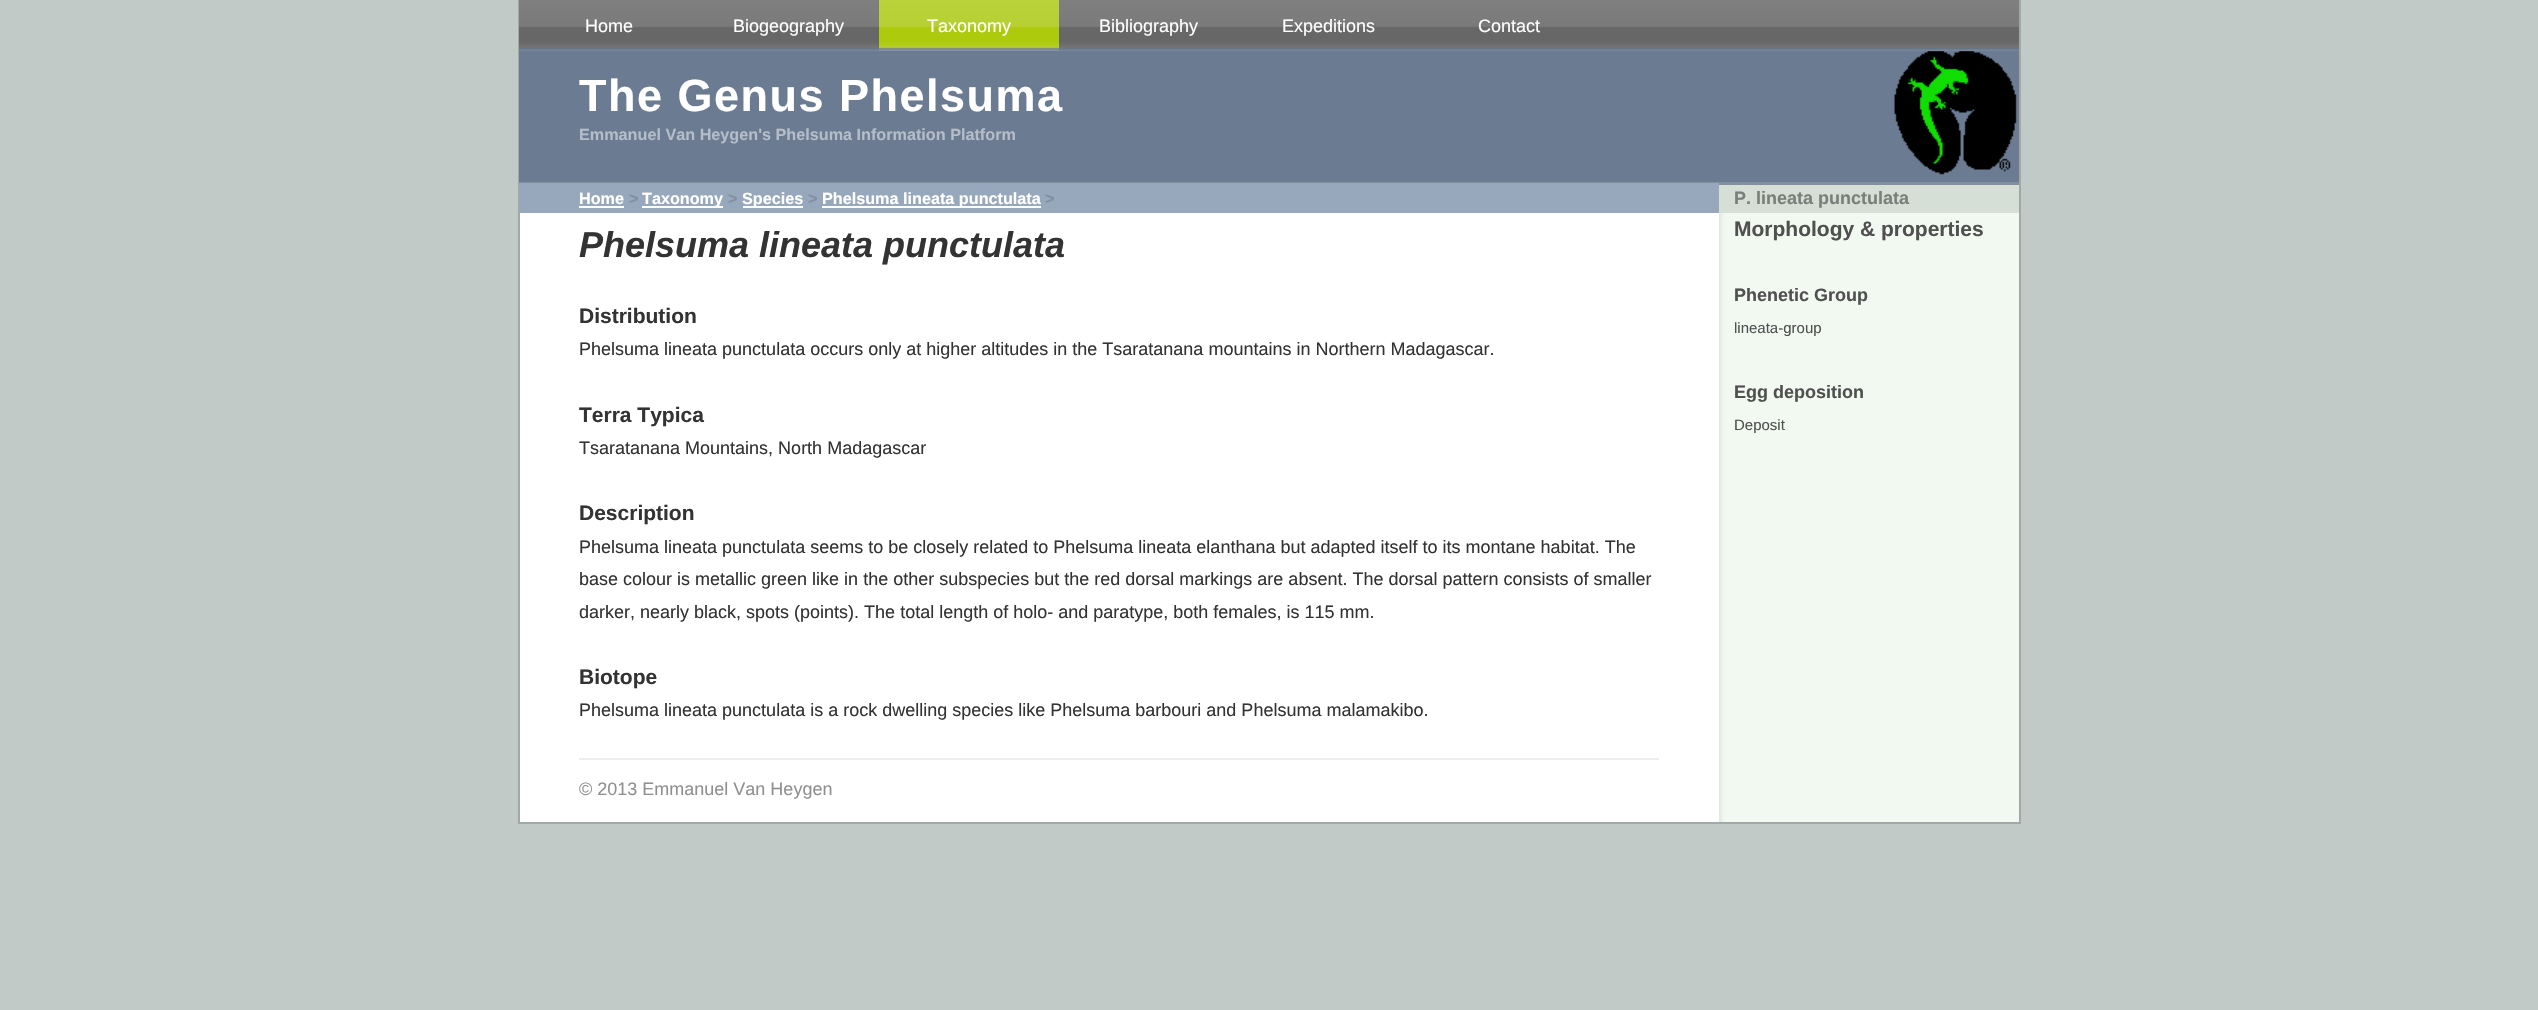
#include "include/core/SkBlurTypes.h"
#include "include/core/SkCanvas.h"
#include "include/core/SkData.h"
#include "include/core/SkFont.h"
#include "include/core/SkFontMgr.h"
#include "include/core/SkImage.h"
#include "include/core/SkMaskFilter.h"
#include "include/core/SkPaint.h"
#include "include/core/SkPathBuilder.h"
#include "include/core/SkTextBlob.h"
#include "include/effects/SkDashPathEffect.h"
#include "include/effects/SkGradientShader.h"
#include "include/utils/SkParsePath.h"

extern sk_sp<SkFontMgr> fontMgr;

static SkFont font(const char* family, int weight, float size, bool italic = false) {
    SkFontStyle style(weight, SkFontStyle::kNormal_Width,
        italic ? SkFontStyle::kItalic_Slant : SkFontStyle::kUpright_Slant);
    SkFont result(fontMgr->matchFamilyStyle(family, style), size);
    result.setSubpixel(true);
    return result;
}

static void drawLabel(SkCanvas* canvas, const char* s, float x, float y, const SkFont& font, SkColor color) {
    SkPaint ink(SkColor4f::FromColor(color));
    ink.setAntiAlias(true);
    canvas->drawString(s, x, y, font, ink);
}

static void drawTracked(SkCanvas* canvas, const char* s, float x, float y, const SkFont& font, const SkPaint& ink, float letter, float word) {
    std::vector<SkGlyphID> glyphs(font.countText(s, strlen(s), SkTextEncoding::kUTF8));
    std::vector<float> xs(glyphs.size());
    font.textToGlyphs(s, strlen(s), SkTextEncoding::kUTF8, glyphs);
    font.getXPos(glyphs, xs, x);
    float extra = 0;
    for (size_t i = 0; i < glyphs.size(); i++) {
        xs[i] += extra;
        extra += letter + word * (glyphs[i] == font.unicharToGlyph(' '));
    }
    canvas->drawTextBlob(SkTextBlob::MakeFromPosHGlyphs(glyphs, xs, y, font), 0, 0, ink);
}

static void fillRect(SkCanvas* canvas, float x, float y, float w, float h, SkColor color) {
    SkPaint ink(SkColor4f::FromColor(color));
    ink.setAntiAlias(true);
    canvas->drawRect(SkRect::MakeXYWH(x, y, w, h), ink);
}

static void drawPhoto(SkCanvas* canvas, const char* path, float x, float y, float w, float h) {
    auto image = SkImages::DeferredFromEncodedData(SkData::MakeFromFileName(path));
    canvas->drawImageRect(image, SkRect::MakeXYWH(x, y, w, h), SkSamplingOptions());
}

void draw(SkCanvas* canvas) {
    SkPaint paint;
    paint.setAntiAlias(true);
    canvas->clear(0xFFC2CAC8);
    fillRect(canvas, 520, 213, 1199, 609, 0xFFFFFFFF);
    drawPhoto(canvas, "assets/img1.png", 1719, 213, 300, 609);
    fillRect(canvas, 2019, 0, 2, 824, 0xFFA0A9A7);
    fillRect(canvas, 518, 822, 1503, 2, 0xFFA0A9A7);
    fillRect(canvas, 518, 0, 2, 824, 0xFFA0A9A7);
    drawPhoto(canvas, "assets/img2.png", 519, 0, 1500, 51);
    SkFont font1 = font("Liberation Sans", 400, 18);
    drawLabel(canvas, "Home", 585, 32, font1, 0xFFFFFFFF);
    drawLabel(canvas, "Biogeography", 733, 32, font1, 0xFFFFFFFF);
    drawPhoto(canvas, "assets/img3.png", 879, 0, 180, 51);
    drawLabel(canvas, "Taxonomy", 927, 32, font1, 0xFFFFFFFF);
    drawLabel(canvas, "Bibliography", 1099, 32, font1, 0xFFFFFFFF);
    drawLabel(canvas, "Expeditions", 1282, 32, font1, 0xFFFFFFFF);
    drawLabel(canvas, "Contact", 1478, 32, font1, 0xFFFFFFFF);
    fillRect(canvas, 519, 51, 1500, 131, 0xFF6B7B91);
    fillRect(canvas, 519, 182, 1500, 3, 0xFF818FA1);
    SkFont font2 = font("Liberation Sans", 700, 45);
    paint.setColor(0xFFFFFFFF);
    drawTracked(canvas, "The Genus Phelsuma", 579, 111, font2, paint, 1.5f, 0);
    drawPhoto(canvas, "assets/img4.png", 1894, 51, 123, 124);
    SkFont font3 = font("Liberation Sans", 700, 16.2f);
    drawLabel(canvas, "Emmanuel Van Heygen's Phelsuma Information Platform", 579, 140, font3, 0xFFB5BDC8);
    fillRect(canvas, 519, 183, 1200, 30, 0xFF97A8BC);
    drawLabel(canvas, "Home", 579, 204, font3, 0xFFFFFFFF);
    fillRect(canvas, 579, 206, 45, 2, 0xFFFFFFFF);
    drawLabel(canvas, ">", 629, 204, font3, 0xFF808EA0);
    fillRect(canvas, 642, 206, 81, 2, 0xFFFFFFFF);
    drawLabel(canvas, "Taxonomy", 642, 204, font3, 0xFFFFFFFF);
    drawLabel(canvas, ">", 728, 204, font3, 0xFF808EA0);
    fillRect(canvas, 743, 206, 60, 2, 0xFFFFFFFF);
    drawLabel(canvas, "Species", 742, 204, font3, 0xFFFFFFFF);
    drawLabel(canvas, ">", 808, 204, font3, 0xFF808EA0);
    fillRect(canvas, 822, 206, 219, 2, 0xFFFFFFFF);
    drawLabel(canvas, "Phelsuma lineata punctulata", 822, 204, font3, 0xFFFFFFFF);
    drawLabel(canvas, ">", 1045, 204, font3, 0xFF808EA0);
    SkFont font4 = font("Liberation Sans", 700, 36, true);
    drawLabel(canvas, "Phelsuma lineata punctulata", 579, 257, font4, 0xFF333333);
    SkFont font5 = font("Liberation Sans", 700, 21);
    drawLabel(canvas, "Distribution", 579, 323, font5, 0xFF333333);
    drawLabel(canvas, "Phelsuma lineata punctulata occurs only at higher altitudes in the Tsaratanana mountains in Northern Madagascar.", 579, 355, font1, 0xFF333333);
    drawLabel(canvas, "Terra Typica", 579, 422, font5, 0xFF333333);
    drawLabel(canvas, "Tsaratanana Mountains, North Madagascar", 579, 454, font1, 0xFF333333);
    drawLabel(canvas, "Description", 579, 520, font5, 0xFF333333);
    drawLabel(canvas, "Phelsuma lineata punctulata seems to be closely related to Phelsuma lineata elanthana but adapted itself to its montane habitat. The", 579, 553, font1, 0xFF333333);
    drawLabel(canvas, "base colour is metallic green like in the other subspecies but the red dorsal markings are absent. The dorsal pattern consists of smaller", 579, 585, font1, 0xFF333333);
    drawLabel(canvas, "darker, nearly black, spots (points). The total length of holo- and paratype, both females, is 115 mm.", 579, 618, font1, 0xFF333333);
    drawLabel(canvas, "Biotope", 579, 684, font5, 0xFF333333);
    drawLabel(canvas, "Phelsuma lineata punctulata is a rock dwelling species like Phelsuma barbouri and Phelsuma malamakibo.", 579, 716, font1, 0xFF333333);
    fillRect(canvas, 579, 758, 1080, 2, 0xFFEEEEEE);
    drawLabel(canvas, "© 2013 Emmanuel Van Heygen", 579, 795, font1, 0xFF909090);
    fillRect(canvas, 1719, 185, 300, 28, 0xFFD5DFD6);
    SkFont font6 = font("Liberation Sans", 700, 18);
    drawLabel(canvas, "P. lineata punctulata", 1734, 204, font6, 0xFF797F7A);
    drawLabel(canvas, "Morphology & properties", 1734, 236, font5, 0xFF505050);
    drawLabel(canvas, "Phenetic Group", 1734, 301, font6, 0xFF505050);
    SkFont font7 = font("Liberation Sans", 400, 15);
    drawLabel(canvas, "lineata-group", 1734, 333, font7, 0xFF505050);
    drawLabel(canvas, "Egg deposition", 1734, 398, font6, 0xFF505050);
    drawLabel(canvas, "Deposit", 1734, 430, font7, 0xFF505050);
}
